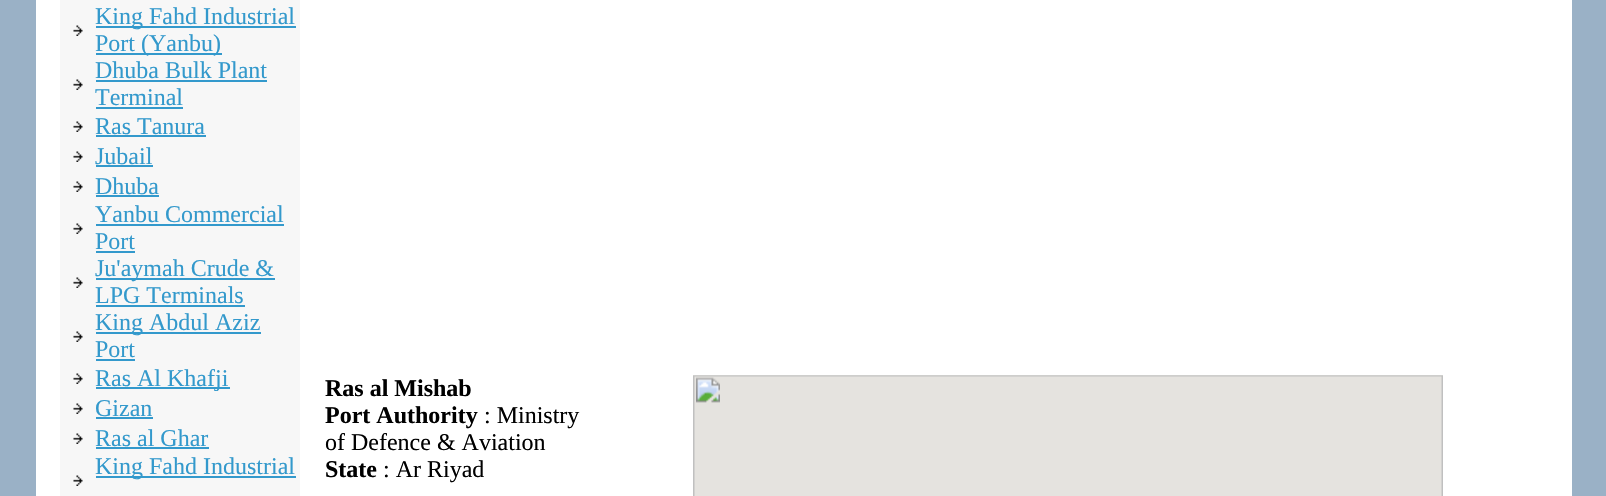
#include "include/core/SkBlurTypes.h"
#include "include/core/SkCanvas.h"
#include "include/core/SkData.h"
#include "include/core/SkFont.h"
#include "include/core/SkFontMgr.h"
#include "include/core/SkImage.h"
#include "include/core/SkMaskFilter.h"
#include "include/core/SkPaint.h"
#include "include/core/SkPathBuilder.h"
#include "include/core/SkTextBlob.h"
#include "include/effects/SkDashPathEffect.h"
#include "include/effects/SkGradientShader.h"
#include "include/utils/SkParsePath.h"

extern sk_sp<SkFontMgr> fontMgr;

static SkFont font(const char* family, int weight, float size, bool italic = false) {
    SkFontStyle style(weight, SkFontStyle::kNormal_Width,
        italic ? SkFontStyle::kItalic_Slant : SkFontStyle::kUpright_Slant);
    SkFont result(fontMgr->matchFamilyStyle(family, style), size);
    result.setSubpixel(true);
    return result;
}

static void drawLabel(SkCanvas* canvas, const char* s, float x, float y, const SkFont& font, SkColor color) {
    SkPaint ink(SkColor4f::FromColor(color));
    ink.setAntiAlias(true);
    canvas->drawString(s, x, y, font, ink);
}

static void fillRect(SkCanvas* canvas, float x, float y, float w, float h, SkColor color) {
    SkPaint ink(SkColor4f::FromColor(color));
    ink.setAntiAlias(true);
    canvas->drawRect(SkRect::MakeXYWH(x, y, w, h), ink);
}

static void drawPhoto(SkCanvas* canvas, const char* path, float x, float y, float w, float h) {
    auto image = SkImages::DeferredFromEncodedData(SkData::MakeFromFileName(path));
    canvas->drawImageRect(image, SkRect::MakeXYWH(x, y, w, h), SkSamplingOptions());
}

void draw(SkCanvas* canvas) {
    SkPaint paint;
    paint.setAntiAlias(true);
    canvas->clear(0xFF9AB1C6);
    fillRect(canvas, 36, 0, 1536, 496, 0xFFFFFFFF);
    fillRect(canvas, 60, 0, 240, 496, 0xFFF7F7F7);
    drawPhoto(canvas, "assets/img1.png", 73, 25, 10, 11);
    fillRect(canvas, 96, 26, 200, 2, 0xFF3399CC);
    SkFont font1 = font("Liberation Serif", 400, 24);
    drawLabel(canvas, "King Fahd Industrial", 95, 24, font1, 0xFF3399CC);
    fillRect(canvas, 96, 53, 126, 2, 0xFF3399CC);
    drawLabel(canvas, "Port (Yanbu)", 95, 51, font1, 0xFF3399CC);
    drawPhoto(canvas, "assets/img1.png", 73, 79, 10, 11);
    drawLabel(canvas, "Dhuba Bulk Plant", 95, 78, font1, 0xFF3399CC);
    fillRect(canvas, 96, 80, 171, 2, 0xFF3399CC);
    drawLabel(canvas, "Terminal", 95, 105, font1, 0xFF3399CC);
    fillRect(canvas, 96, 107, 87, 2, 0xFF3399CC);
    drawPhoto(canvas, "assets/img1.png", 73, 121, 10, 11);
    drawLabel(canvas, "Ras Tanura", 95, 134, font1, 0xFF3399CC);
    fillRect(canvas, 96, 135, 110, 2, 0xFF3399CC);
    drawPhoto(canvas, "assets/img1.png", 73, 151, 10, 11);
    drawLabel(canvas, "Jubail", 95, 164, font1, 0xFF3399CC);
    fillRect(canvas, 96, 165, 57, 2, 0xFF3399CC);
    drawPhoto(canvas, "assets/img1.png", 73, 181, 10, 11);
    drawLabel(canvas, "Dhuba", 95, 194, font1, 0xFF3399CC);
    fillRect(canvas, 96, 195, 63, 2, 0xFF3399CC);
    drawPhoto(canvas, "assets/img1.png", 73, 223, 10, 11);
    drawLabel(canvas, "Yanbu Commercial", 95, 222, font1, 0xFF3399CC);
    fillRect(canvas, 96, 224, 188, 2, 0xFF3399CC);
    drawLabel(canvas, "Port", 95, 249, font1, 0xFF3399CC);
    fillRect(canvas, 96, 251, 39, 2, 0xFF3399CC);
    drawPhoto(canvas, "assets/img1.png", 73, 277, 10, 11);
    fillRect(canvas, 96, 278, 179, 2, 0xFF3399CC);
    drawLabel(canvas, "Ju'aymah Crude &", 95, 276, font1, 0xFF3399CC);
    drawLabel(canvas, "LPG Terminals", 95, 303, font1, 0xFF3399CC);
    fillRect(canvas, 96, 305, 149, 2, 0xFF3399CC);
    drawPhoto(canvas, "assets/img1.png", 73, 331, 10, 11);
    fillRect(canvas, 96, 332, 165, 2, 0xFF3399CC);
    drawLabel(canvas, "King Abdul Aziz", 95, 330, font1, 0xFF3399CC);
    drawLabel(canvas, "Port", 95, 357, font1, 0xFF3399CC);
    fillRect(canvas, 96, 359, 39, 2, 0xFF3399CC);
    drawPhoto(canvas, "assets/img1.png", 73, 373, 10, 11);
    fillRect(canvas, 96, 387, 134, 2, 0xFF3399CC);
    drawLabel(canvas, "Ras Al Khafji", 95, 386, font1, 0xFF3399CC);
    drawPhoto(canvas, "assets/img1.png", 73, 403, 10, 11);
    drawLabel(canvas, "Gizan", 95, 416, font1, 0xFF3399CC);
    fillRect(canvas, 96, 417, 57, 2, 0xFF3399CC);
    drawPhoto(canvas, "assets/img1.png", 73, 433, 10, 11);
    drawLabel(canvas, "Ras al Ghar", 95, 446, font1, 0xFF3399CC);
    fillRect(canvas, 96, 447, 113, 2, 0xFF3399CC);
    drawPhoto(canvas, "assets/img1.png", 73, 475, 10, 11);
    fillRect(canvas, 96, 476, 200, 2, 0xFF3399CC);
    drawLabel(canvas, "King Fahd Industrial", 95, 474, font1, 0xFF3399CC);
    SkFont font2 = font("Liberation Serif", 700, 24);
    drawLabel(canvas, "Ras al Mishab", 325, 396, font2, 0xFF000000);
    drawLabel(canvas, "Port Authority", 325, 423, font2, 0xFF000000);
    drawLabel(canvas, ": Ministry", 484, 423, font1, 0xFF000000);
    drawLabel(canvas, "of Defence & Aviation", 325, 450, font1, 0xFF000000);
    drawLabel(canvas, "State", 325, 477, font2, 0xFF000000);
    drawLabel(canvas, ": Ar Riyad", 383, 477, font1, 0xFF000000);
    drawPhoto(canvas, "assets/img2.png", 693, 375, 750, 121);
}
